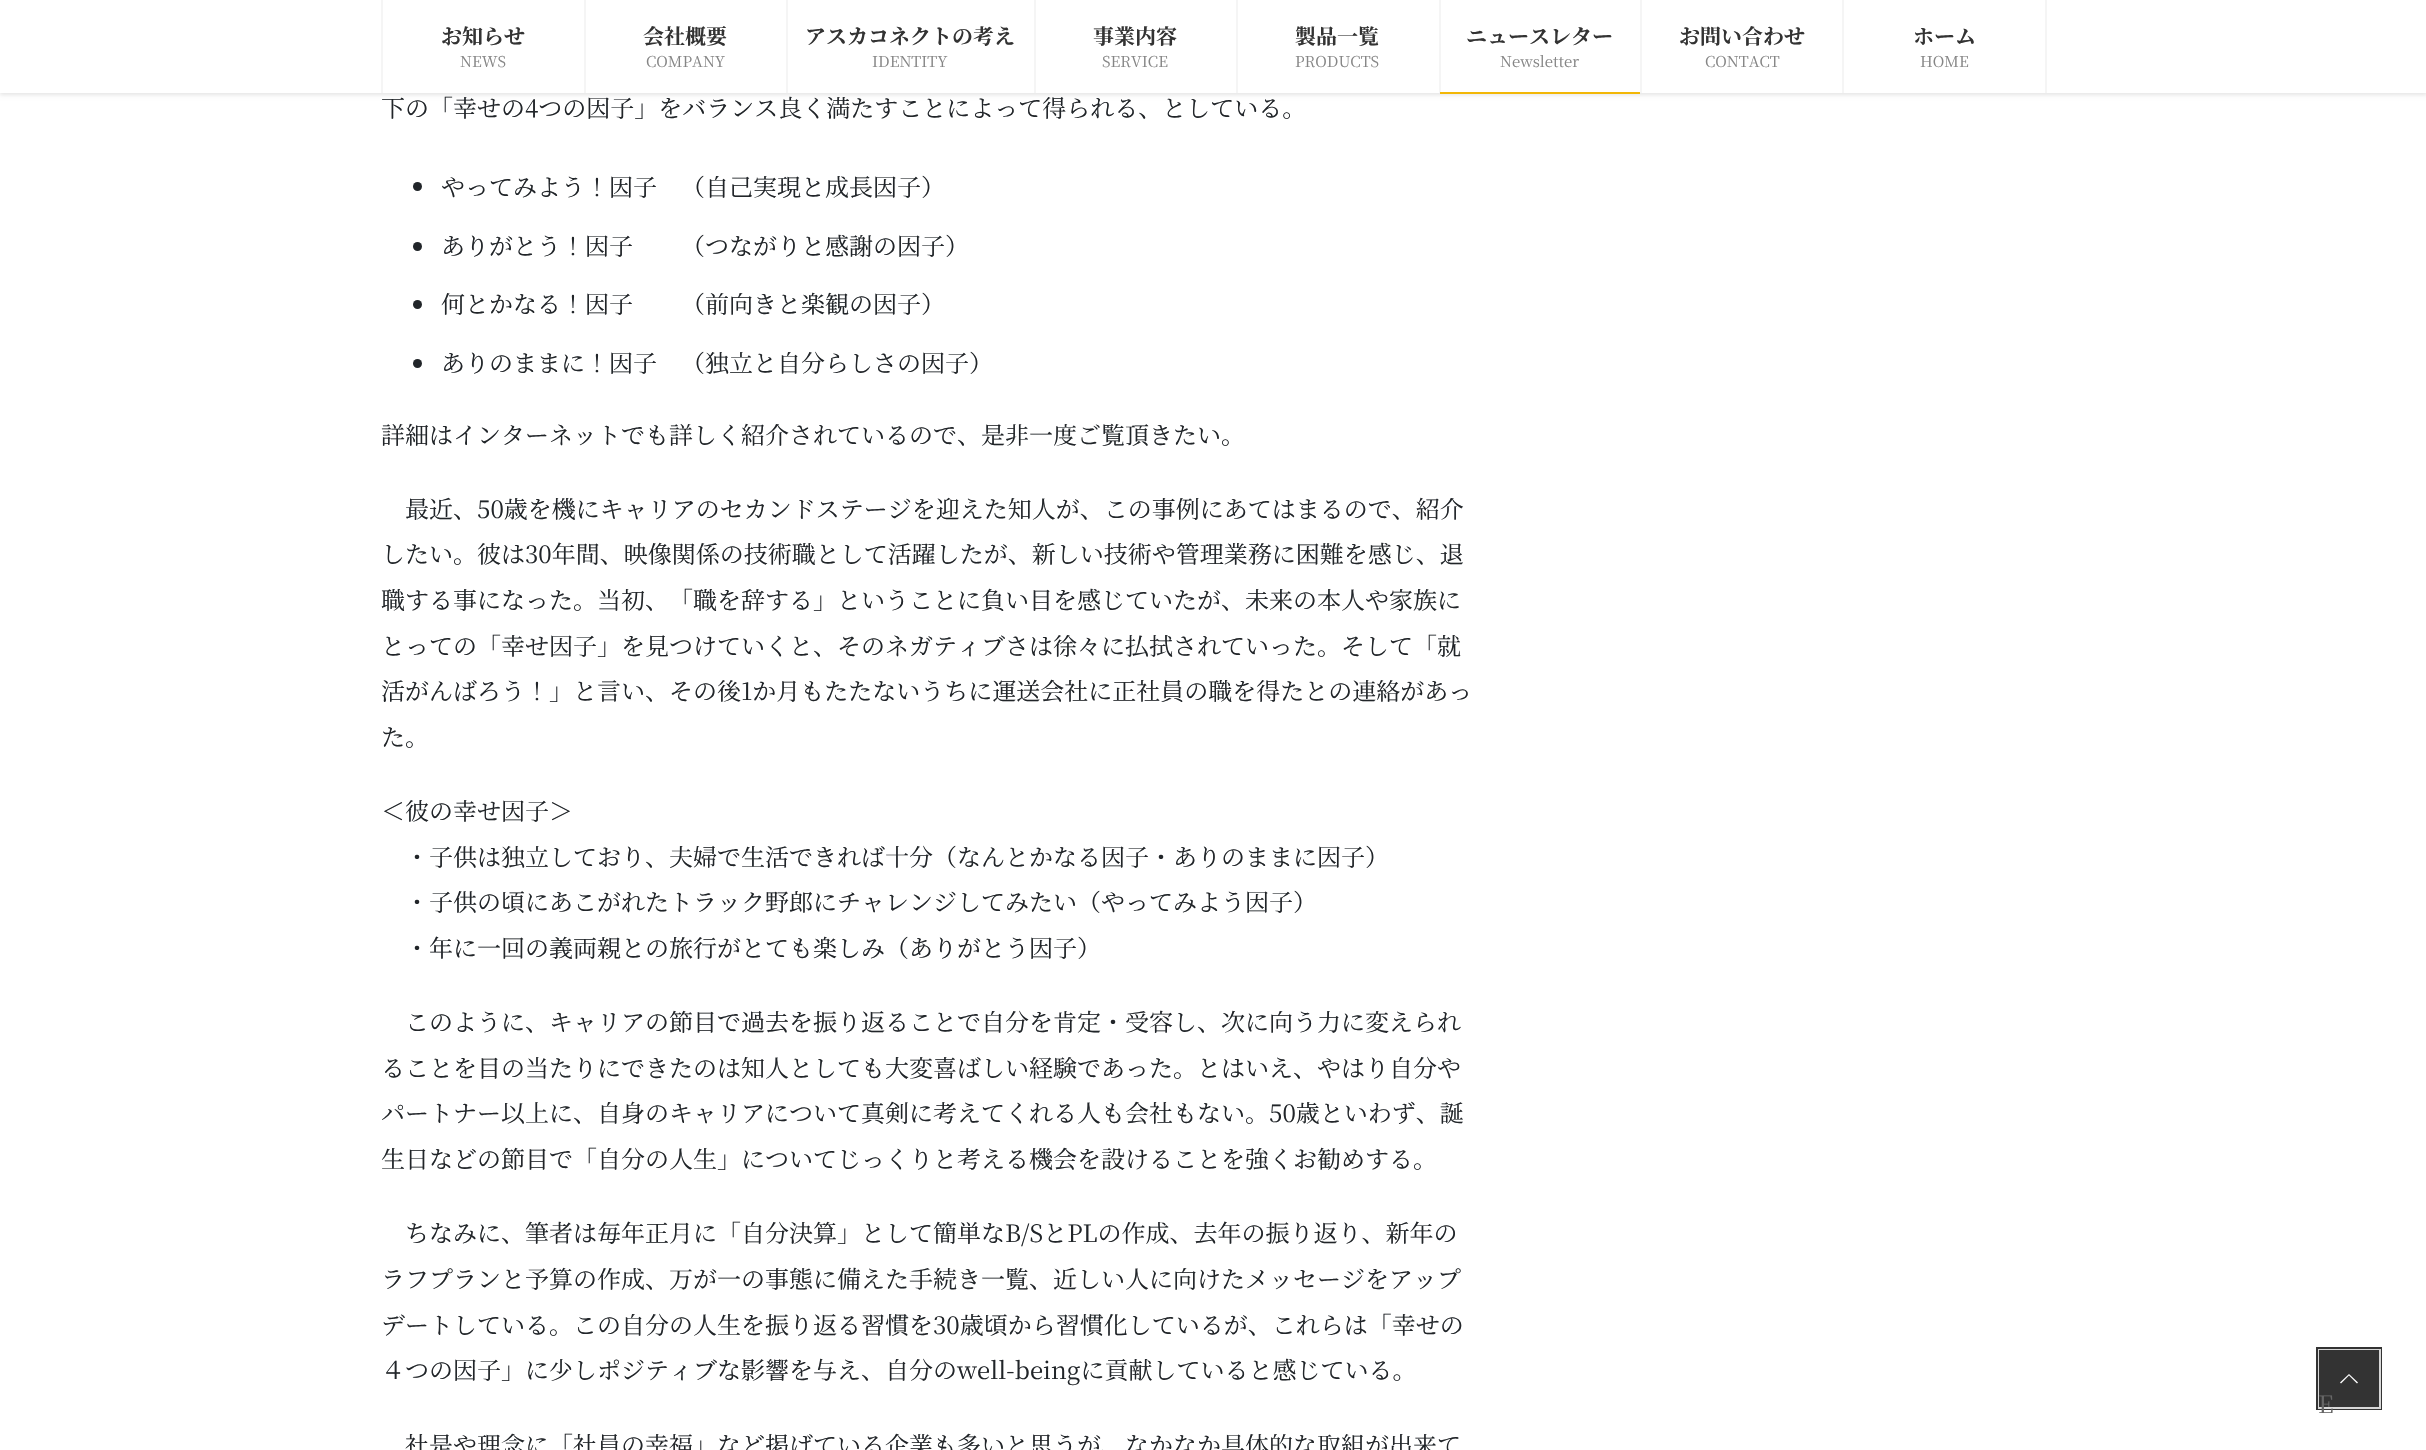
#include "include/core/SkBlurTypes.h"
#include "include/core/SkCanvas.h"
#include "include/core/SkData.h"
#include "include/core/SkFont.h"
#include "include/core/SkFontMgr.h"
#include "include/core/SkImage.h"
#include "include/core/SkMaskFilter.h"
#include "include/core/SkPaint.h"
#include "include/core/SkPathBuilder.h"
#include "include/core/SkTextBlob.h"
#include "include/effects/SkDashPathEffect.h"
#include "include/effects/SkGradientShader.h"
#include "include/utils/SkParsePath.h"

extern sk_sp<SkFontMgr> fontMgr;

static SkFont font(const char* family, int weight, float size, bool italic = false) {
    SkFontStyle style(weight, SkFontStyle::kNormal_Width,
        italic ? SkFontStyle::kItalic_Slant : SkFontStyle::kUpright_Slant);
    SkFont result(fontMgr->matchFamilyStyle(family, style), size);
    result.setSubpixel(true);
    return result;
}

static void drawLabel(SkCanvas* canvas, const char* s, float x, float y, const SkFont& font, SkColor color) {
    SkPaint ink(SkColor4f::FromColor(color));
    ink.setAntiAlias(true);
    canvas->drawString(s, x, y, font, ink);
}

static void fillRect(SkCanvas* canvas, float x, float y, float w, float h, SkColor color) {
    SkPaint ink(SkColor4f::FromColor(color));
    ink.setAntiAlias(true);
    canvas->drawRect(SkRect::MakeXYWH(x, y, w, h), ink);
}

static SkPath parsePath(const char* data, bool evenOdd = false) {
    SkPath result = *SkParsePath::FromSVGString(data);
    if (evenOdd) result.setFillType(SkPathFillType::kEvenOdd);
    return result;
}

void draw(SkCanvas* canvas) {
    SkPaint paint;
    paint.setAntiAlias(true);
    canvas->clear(0xFFFFFFFF);
    paint.setColor(0x1A000000);
    paint.setMaskFilter(SkMaskFilter::MakeBlur(kNormal_SkBlurStyle, 2));
    canvas->drawRect(SkRect::MakeXYWH(0, 2, 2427, 93), paint);
    paint.setMaskFilter(nullptr);
    fillRect(canvas, 0, 0, 2426, 93, 0xFFFFFFFF);
    fillRect(canvas, 381, 0, 2, 93, 0xFFF5F5F5);
    SkFont font1 = font("Noto Serif JP", 700, 21);
    drawLabel(canvas, "お知らせ", 441, 44, font1, 0xFF333333);
    SkFont font2 = font("Noto Serif JP", 400, 15);
    drawLabel(canvas, "NEWS", 460, 67, font2, 0xFF858585);
    fillRect(canvas, 584, 0, 2, 93, 0xFFF5F5F5);
    drawLabel(canvas, "会社概要", 643, 44, font1, 0xFF333333);
    drawLabel(canvas, "COMPANY", 646, 67, font2, 0xFF858585);
    fillRect(canvas, 786, 0, 2, 93, 0xFFF5F5F5);
    drawLabel(canvas, "アスカコネクトの考え", 805, 44, font1, 0xFF333333);
    drawLabel(canvas, "IDENTITY", 872, 67, font2, 0xFF858585);
    fillRect(canvas, 1034, 0, 2, 93, 0xFFF5F5F5);
    drawLabel(canvas, "事業内容", 1093, 44, font1, 0xFF333333);
    drawLabel(canvas, "SERVICE", 1102, 67, font2, 0xFF858585);
    fillRect(canvas, 1236, 0, 2, 93, 0xFFF5F5F5);
    drawLabel(canvas, "製品一覧", 1295, 44, font1, 0xFF333333);
    drawLabel(canvas, "PRODUCTS", 1295, 67, font2, 0xFF858585);
    fillRect(canvas, 1439, 0, 2, 93, 0xFFF5F5F5);
    drawLabel(canvas, "ニュースレター", 1466, 44, font1, 0xFF333333);
    drawLabel(canvas, "Newsletter", 1500, 67, font2, 0xFF858585);
    fillRect(canvas, 1440, 92, 200, 2, 0xFFF2B707);
    fillRect(canvas, 1640, 0, 2, 93, 0xFFF5F5F5);
    drawLabel(canvas, "お問い合わせ", 1679, 44, font1, 0xFF333333);
    drawLabel(canvas, "CONTACT", 1705, 67, font2, 0xFF858585);
    fillRect(canvas, 2045, 0, 2, 93, 0xFFF5F5F5);
    fillRect(canvas, 1842, 0, 2, 93, 0xFFF5F5F5);
    drawLabel(canvas, "ホーム", 1913, 44, font1, 0xFF333333);
    drawLabel(canvas, "HOME", 1920, 67, font2, 0xFF858585);
    SkFont font3 = font("Noto Serif JP", 400, 24);
    drawLabel(canvas, "下の「幸せの4つの因子」をバランス良く満たすことによって得られる、としている。", 381, 117, font3, 0xFF212529);
    paint.setColor(0xFF212529);
    canvas->drawCircle(417.5f, 186.5f, 4.5f, paint);
    drawLabel(canvas, "やってみよう！因子　（自己実現と成長因子）", 441, 196, font3, 0xFF212529);
    canvas->drawCircle(417.5f, 246.5f, 4.5f, paint);
    drawLabel(canvas, "ありがとう！因子　　（つながりと感謝の因子）", 441, 255, font3, 0xFF212529);
    canvas->drawCircle(417.5f, 304.5f, 4.5f, paint);
    drawLabel(canvas, "何とかなる！因子　　（前向きと楽観の因子）", 441, 313, font3, 0xFF212529);
    canvas->drawCircle(417.5f, 363.5f, 4.5f, paint);
    drawLabel(canvas, "ありのままに！因子　（独立と自分らしさの因子）", 441, 372, font3, 0xFF212529);
    drawLabel(canvas, "詳細はインターネットでも詳しく紹介されているので、是非一度ご覧頂きたい。", 381, 444, font3, 0xFF212529);
    drawLabel(canvas, "最近、50歳を機にキャリアのセカンドステージを迎えた知人が、この事例にあてはまるので、紹介", 405, 518, font3, 0xFF212529);
    drawLabel(canvas, "したい。彼は30年間、映像関係の技術職として活躍したが、新しい技術や管理業務に困難を感じ、退", 381, 563, font3, 0xFF212529);
    drawLabel(canvas, "職する事になった。当初、「職を辞する」ということに負い目を感じていたが、未来の本人や家族に", 381, 609, font3, 0xFF212529);
    drawLabel(canvas, "とっての「幸せ因子」を見つけていくと、そのネガティブさは徐々に払拭されていった。そして「就", 381, 655, font3, 0xFF212529);
    drawLabel(canvas, "活がんばろう！」と言い、その後1か月もたたないうちに運送会社に正社員の職を得たとの連絡があっ", 381, 700, font3, 0xFF212529);
    drawLabel(canvas, "た。", 381, 746, font3, 0xFF212529);
    drawLabel(canvas, "＜彼の幸せ因子＞", 381, 820, font3, 0xFF212529);
    drawLabel(canvas, "・子供は独立しており、夫婦で生活できれば十分（なんとかなる因子・ありのままに因子）", 405, 866, font3, 0xFF212529);
    drawLabel(canvas, "・子供の頃にあこがれたトラック野郎にチャレンジしてみたい（やってみよう因子）", 405, 911, font3, 0xFF212529);
    drawLabel(canvas, "・年に一回の義両親との旅行がとても楽しみ（ありがとう因子）", 405, 957, font3, 0xFF212529);
    drawLabel(canvas, "このように、キャリアの節目で過去を振り返ることで自分を肯定・受容し、次に向う力に変えられ", 405, 1031, font3, 0xFF212529);
    drawLabel(canvas, "ることを目の当たりにできたのは知人としても大変喜ばしい経験であった。とはいえ、やはり自分や", 381, 1077, font3, 0xFF212529);
    drawLabel(canvas, "パートナー以上に、自身のキャリアについて真剣に考えてくれる人も会社もない。50歳といわず、誕", 381, 1122, font3, 0xFF212529);
    drawLabel(canvas, "生日などの節目で「自分の人生」についてじっくりと考える機会を設けることを強くお勧めする。", 381, 1168, font3, 0xFF212529);
    drawLabel(canvas, "ちなみに、筆者は毎年正月に「自分決算」として簡単なB/SとPLの作成、去年の振り返り、新年の", 405, 1242, font3, 0xFF212529);
    drawLabel(canvas, "ラフプランと予算の作成、万が一の事態に備えた手続き一覧、近しい人に向けたメッセージをアップ", 381, 1288, font3, 0xFF212529);
    drawLabel(canvas, "デートしている。この自分の人生を振り返る習慣を30歳頃から習慣化しているが、これらは「幸せの", 381, 1334, font3, 0xFF212529);
    drawLabel(canvas, "４つの因子」に少しポジティブな影響を与え、自分のwell-beingに貢献していると感じている。", 381, 1379, font3, 0xFF212529);
    drawLabel(canvas, "社是や理念に「社員の幸福」など掲げている企業も多いと思うが、なかなか具体的な取組が出来て", 405, 1454, font3, 0xFF212529);
    paint.setStroke(true);
    paint.setStrokeWidth(3);
    paint.setColor(0xFF333333);
    canvas->drawRect(SkRect::MakeXYWH(2317.5f, 1348.5f, 63, 60), paint);
    paint.setStrokeWidth(2);
    paint.setColor(0xCCFFFFFF);
    canvas->drawRect(SkRect::MakeXYWH(2319, 1350, 61, 58), paint);
    fillRect(canvas, 2319, 1350, 60, 57, 0xFF333333);
    paint.setStroke(false);
    paint.setColor(0xFFFFFFFF);
    canvas->drawPath(parsePath("M2358 1382.5L2357 1383.5L2349 1375.5L2341 1383.5L2340 1382.5L2349 1374Z"), paint);
    drawLabel(canvas, "E", 2318, 1413, font3, 0xFF666666);
}
